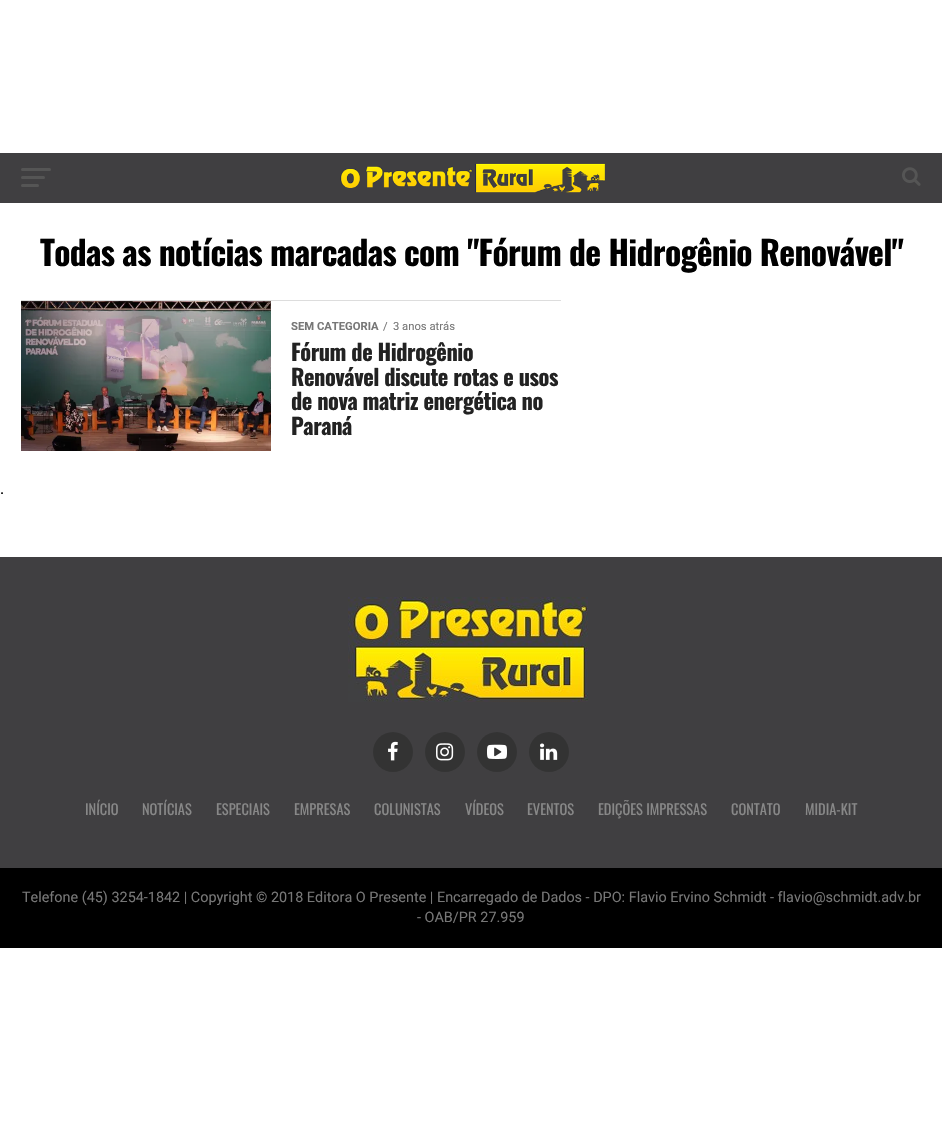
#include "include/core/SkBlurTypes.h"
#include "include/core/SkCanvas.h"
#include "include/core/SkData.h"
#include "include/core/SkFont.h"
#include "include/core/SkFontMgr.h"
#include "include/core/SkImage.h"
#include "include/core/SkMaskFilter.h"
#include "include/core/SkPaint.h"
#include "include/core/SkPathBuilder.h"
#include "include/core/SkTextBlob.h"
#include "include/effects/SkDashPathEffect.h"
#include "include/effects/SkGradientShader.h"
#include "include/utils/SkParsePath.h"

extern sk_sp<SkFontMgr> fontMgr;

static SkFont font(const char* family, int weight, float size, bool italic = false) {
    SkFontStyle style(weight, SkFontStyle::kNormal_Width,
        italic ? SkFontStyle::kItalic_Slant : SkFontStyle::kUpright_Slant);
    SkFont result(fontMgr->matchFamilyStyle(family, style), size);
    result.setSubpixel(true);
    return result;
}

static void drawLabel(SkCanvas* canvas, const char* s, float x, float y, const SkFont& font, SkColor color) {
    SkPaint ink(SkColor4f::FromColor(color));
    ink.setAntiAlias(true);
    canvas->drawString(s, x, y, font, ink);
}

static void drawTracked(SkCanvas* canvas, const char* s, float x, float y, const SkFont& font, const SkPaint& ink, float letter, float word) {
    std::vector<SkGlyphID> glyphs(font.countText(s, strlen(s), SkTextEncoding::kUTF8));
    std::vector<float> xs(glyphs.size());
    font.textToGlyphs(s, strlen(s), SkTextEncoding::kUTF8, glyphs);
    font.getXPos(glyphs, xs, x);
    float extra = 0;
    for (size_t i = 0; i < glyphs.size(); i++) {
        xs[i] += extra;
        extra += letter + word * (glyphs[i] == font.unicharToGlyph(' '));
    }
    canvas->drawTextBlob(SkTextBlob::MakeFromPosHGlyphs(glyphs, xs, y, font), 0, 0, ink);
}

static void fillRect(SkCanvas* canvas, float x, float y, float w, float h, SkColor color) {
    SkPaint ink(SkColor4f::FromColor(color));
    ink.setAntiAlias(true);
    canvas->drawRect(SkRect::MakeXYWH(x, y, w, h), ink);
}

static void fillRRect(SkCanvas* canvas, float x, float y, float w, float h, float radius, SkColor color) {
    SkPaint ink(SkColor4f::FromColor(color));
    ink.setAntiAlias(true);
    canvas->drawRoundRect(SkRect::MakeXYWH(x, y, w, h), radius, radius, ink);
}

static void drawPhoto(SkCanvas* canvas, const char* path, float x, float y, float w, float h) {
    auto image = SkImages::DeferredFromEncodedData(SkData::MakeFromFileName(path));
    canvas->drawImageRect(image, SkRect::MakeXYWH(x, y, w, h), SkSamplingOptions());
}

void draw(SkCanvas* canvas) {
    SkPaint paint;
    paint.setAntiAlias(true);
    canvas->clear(0xFFFFFFFF);
    fillRect(canvas, 0, 153, 942, 50, 0xFF403F41);
    fillRRect(canvas, 21, 168, 30, 3, 1.5f, 0xFF555555);
    fillRRect(canvas, 21, 176, 24, 3, 1.5f, 0xFF555555);
    fillRRect(canvas, 21, 184, 18, 3, 1.5f, 0xFF555555);
    drawPhoto(canvas, "assets/img1.png", 340, 163, 265, 30);
    drawPhoto(canvas, "assets/img2.png", 902, 167, 19, 19);
    SkFont font1 = font("Oswald", 700, 33.6f);
    paint.setColor(0xFF000000);
    drawTracked(canvas, "Todas as notícias marcadas com \"Fórum de Hidrogênio Renovável\"", 40, 266, font1, paint, -0.67f, 0);
    fillRect(canvas, 21, 300, 540, 1, 0xFFDDDDDD);
    drawPhoto(canvas, "assets/img3.png", 21, 301, 250, 150);
    SkFont font2 = font("Roboto", 700, 11.25f);
    drawLabel(canvas, "SEM CATEGORIA", 291, 330, font2, 0xFF777777);
    SkFont font3 = font("Roboto", 400, 11.25f);
    drawLabel(canvas, "/", 383, 330, font3, 0xFF777777);
    drawLabel(canvas, "3 anos atrás", 393, 330, font3, 0xFF777777);
    SkFont font4 = font("Oswald", 700, 22.4f);
    paint.setColor(0xFF222222);
    drawTracked(canvas, "Fórum de Hidrogênio", 291, 361, font4, paint, -0.45f, 0);
    drawTracked(canvas, "Renovável discute rotas e usos", 291, 386, font4, paint, -0.45f, 0);
    drawTracked(canvas, "de nova matriz energética no", 291, 410, font4, paint, -0.45f, 0);
    drawTracked(canvas, "Paraná", 291, 435, font4, paint, -0.45f, 0);
    SkFont font5 = font("Roboto", 400, 16);
    drawLabel(canvas, ".", 0, 494, font5, 0xFF000000);
    fillRect(canvas, 0, 557, 942, 311, 0xFF403F41);
    drawPhoto(canvas, "assets/img4.png", 348, 597, 240, 105);
    paint.setColor(0xFF333333);
    canvas->drawCircle(393, 752, 20, paint);
    drawPhoto(canvas, "assets/img5.png", 388, 741, 10, 20);
    canvas->drawCircle(445, 752, 20, paint);
    drawPhoto(canvas, "assets/img6.png", 436, 743, 18, 18);
    canvas->drawCircle(497, 752, 20, paint);
    drawPhoto(canvas, "assets/img7.png", 487, 744, 20, 15);
    canvas->drawCircle(549, 752, 20, paint);
    drawPhoto(canvas, "assets/img8.png", 540, 743, 18, 17);
    SkFont font6 = font("Oswald", 400, 14.4f);
    drawLabel(canvas, "INÍCIO", 85, 815, font6, 0xFF888888);
    drawLabel(canvas, "NOTÍCIAS", 142, 815, font6, 0xFF888888);
    drawLabel(canvas, "ESPECIAIS", 216, 815, font6, 0xFF888888);
    drawLabel(canvas, "EMPRESAS", 294, 815, font6, 0xFF888888);
    drawLabel(canvas, "COLUNISTAS", 374, 815, font6, 0xFF888888);
    drawLabel(canvas, "VÍDEOS", 465, 815, font6, 0xFF888888);
    drawLabel(canvas, "EVENTOS", 527, 815, font6, 0xFF888888);
    drawLabel(canvas, "EDIÇÕES IMPRESSAS", 598, 815, font6, 0xFF888888);
    drawLabel(canvas, "CONTATO", 731, 815, font6, 0xFF888888);
    drawLabel(canvas, "MIDIA-KIT", 805, 815, font6, 0xFF888888);
    fillRect(canvas, 0, 868, 942, 80, 0xFF000000);
    SkFont font7 = font("Roboto", 400, 14.4f);
    drawLabel(canvas, "Telefone (45) 3254-1842 | Copyright © 2018 Editora O Presente | Encarregado de Dados - DPO: Flavio Ervino Schmidt - flavio@schmidt.adv.br", 22, 902, font7, 0xFF777777);
    drawLabel(canvas, "- OAB/PR 27.959", 417, 922, font7, 0xFF777777);
}
